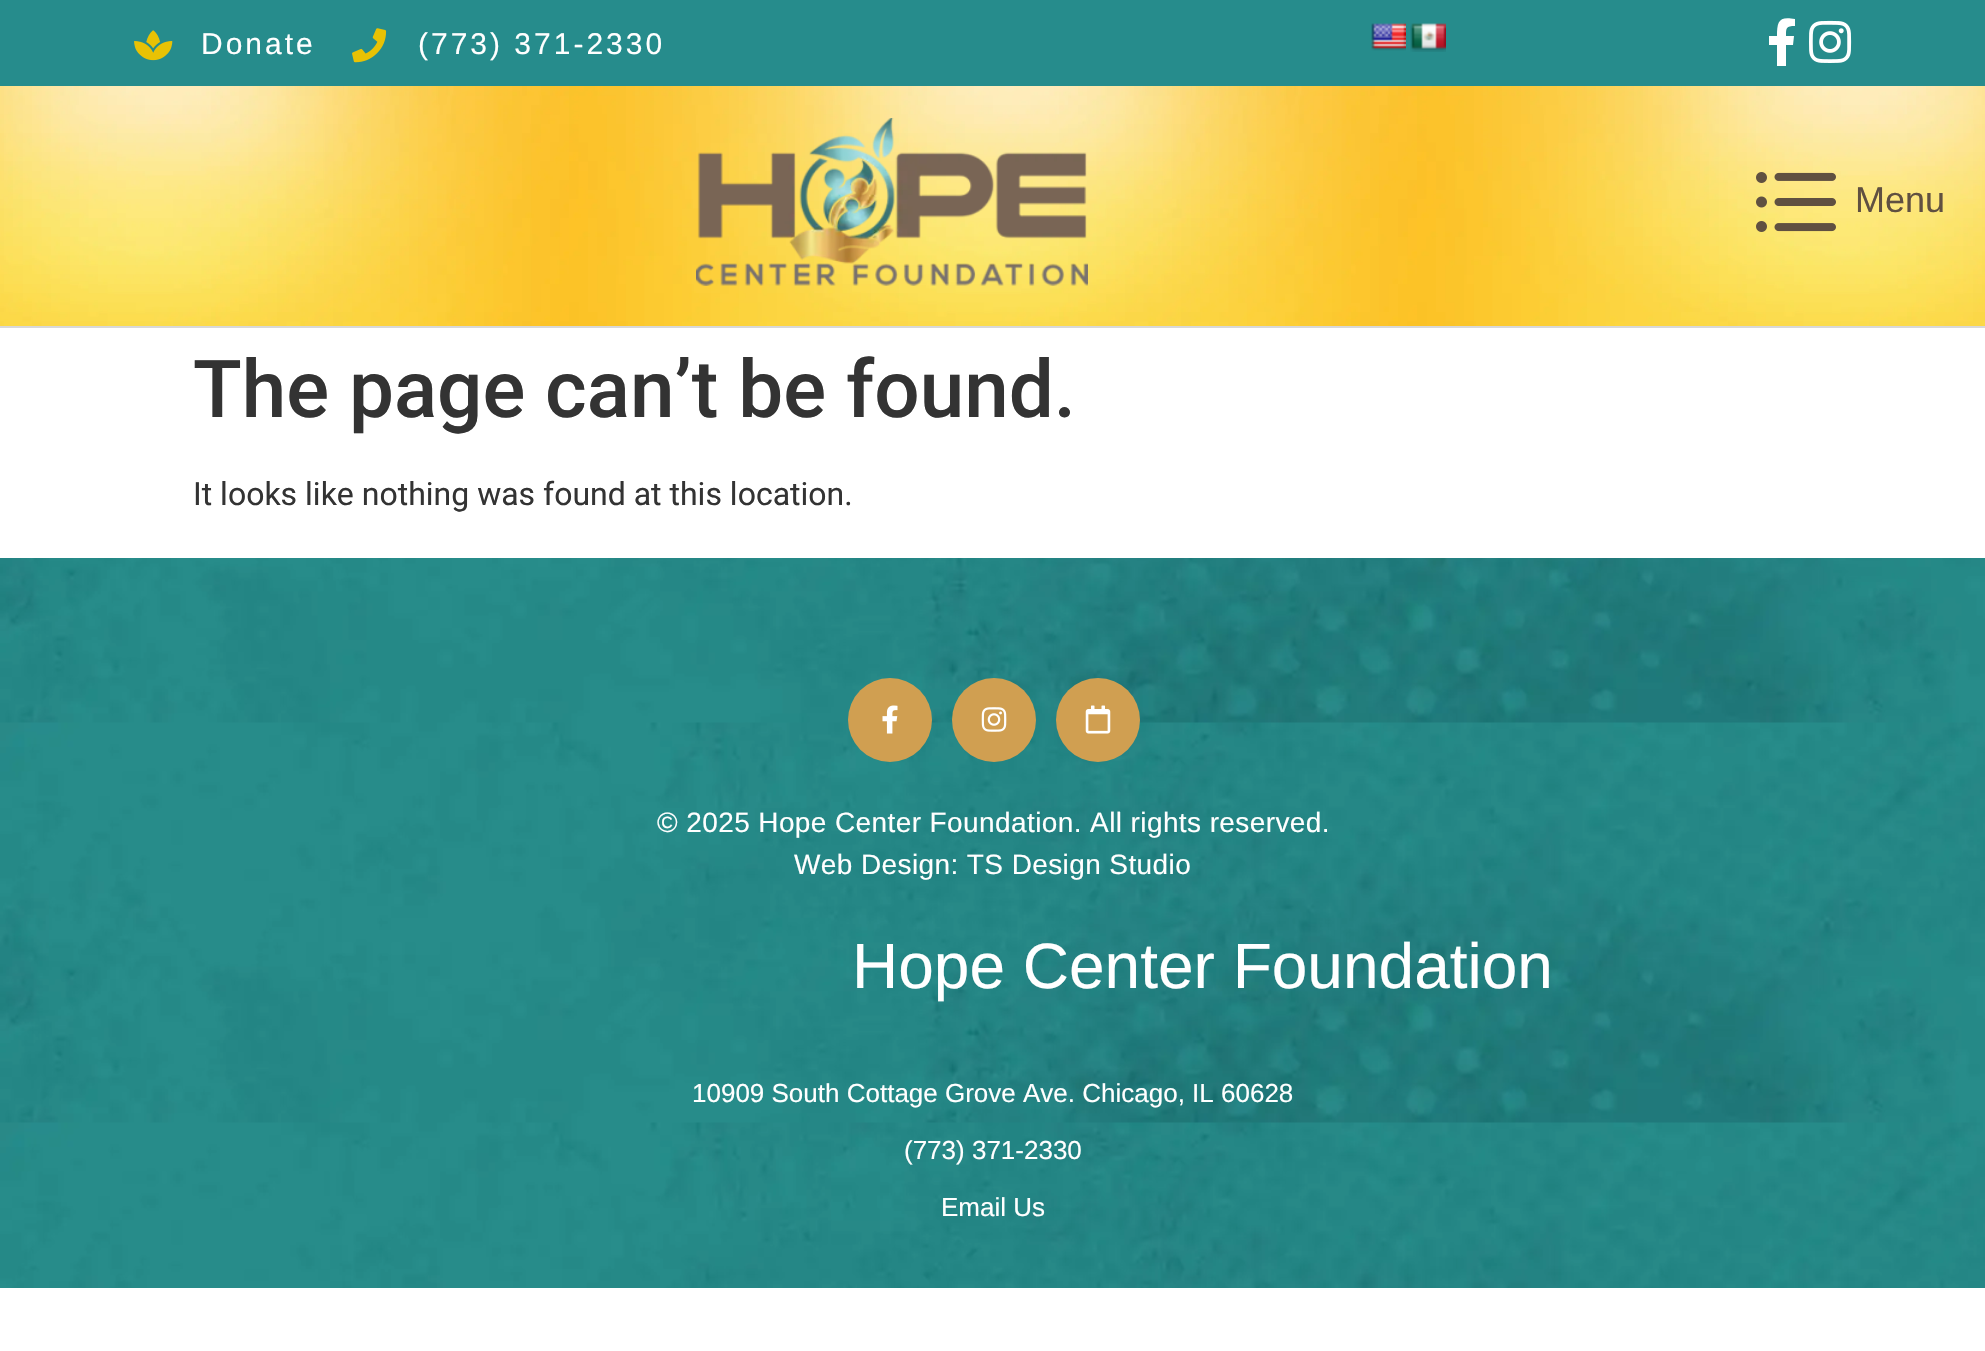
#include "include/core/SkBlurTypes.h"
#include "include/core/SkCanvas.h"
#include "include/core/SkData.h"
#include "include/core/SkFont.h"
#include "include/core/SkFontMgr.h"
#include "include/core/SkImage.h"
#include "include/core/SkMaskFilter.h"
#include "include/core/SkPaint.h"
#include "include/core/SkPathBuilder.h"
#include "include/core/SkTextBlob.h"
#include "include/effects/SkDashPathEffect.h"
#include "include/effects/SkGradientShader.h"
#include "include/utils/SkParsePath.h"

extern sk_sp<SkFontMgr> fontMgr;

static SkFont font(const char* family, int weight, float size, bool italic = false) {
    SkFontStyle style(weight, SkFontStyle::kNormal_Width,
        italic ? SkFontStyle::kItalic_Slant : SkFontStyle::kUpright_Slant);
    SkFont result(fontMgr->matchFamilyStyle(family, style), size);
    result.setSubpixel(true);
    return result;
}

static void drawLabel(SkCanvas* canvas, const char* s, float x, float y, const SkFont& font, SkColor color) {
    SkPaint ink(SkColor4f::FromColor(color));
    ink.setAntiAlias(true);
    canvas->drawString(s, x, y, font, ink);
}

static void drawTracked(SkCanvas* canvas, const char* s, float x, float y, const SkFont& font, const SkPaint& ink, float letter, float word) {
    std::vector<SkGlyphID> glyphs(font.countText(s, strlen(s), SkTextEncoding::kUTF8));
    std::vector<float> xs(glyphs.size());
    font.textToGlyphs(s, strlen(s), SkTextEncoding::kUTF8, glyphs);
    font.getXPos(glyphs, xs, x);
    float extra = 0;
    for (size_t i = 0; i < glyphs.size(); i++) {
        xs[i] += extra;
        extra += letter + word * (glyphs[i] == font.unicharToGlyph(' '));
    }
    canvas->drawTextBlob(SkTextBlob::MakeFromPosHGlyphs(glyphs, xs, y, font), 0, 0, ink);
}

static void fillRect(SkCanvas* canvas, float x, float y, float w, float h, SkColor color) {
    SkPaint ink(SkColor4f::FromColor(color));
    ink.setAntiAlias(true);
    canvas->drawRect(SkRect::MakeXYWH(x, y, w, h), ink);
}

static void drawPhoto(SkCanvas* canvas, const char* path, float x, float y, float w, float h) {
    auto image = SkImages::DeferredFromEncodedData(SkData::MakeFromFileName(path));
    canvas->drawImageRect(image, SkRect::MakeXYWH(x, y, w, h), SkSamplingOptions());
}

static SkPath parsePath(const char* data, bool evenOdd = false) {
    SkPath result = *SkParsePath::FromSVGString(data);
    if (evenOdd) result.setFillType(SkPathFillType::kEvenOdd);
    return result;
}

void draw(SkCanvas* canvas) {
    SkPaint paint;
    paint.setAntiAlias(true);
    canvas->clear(0xFFFFFFFF);
    fillRect(canvas, 0, 0, 1985, 86, 0xFF268C8C);
    drawPhoto(canvas, "assets/img1.png", 134, 30, 39, 31);
    SkFont font1 = font("Liberation Sans", 400, 30);
    paint.setColor(0xFFFFFFFF);
    drawTracked(canvas, "Donate", 201, 54, font1, paint, 3, 0);
    drawPhoto(canvas, "assets/img2.png", 352, 28, 35, 35);
    drawTracked(canvas, "(773) 371-2330", 418, 54, font1, paint, 3, 0);
    drawPhoto(canvas, "assets/img3.png", 1371, 23, 35, 28);
    drawPhoto(canvas, "assets/img4.png", 1410, 23, 36, 29);
    canvas->drawPath(parsePath("M1793 45H1786V66H1777V45H1769V36H1777C1777 21 1779 16 1795 19V26C1786 26 1786 28 1786 36H1794Z"), paint);
    drawPhoto(canvas, "assets/img5.png", 1809, 20, 43, 43);
    drawPhoto(canvas, "assets/img6.png", 0, 86, 1985, 240);
    fillRect(canvas, 0, 326, 1985, 2, 0xFFD8D8D8);
    drawPhoto(canvas, "assets/img7.png", 696, 118, 392, 168);
    drawPhoto(canvas, "assets/img8.png", 1756, 172, 80, 60);
    SkFont font2 = font("Liberation Sans", 400, 36);
    drawLabel(canvas, "Menu", 1855, 212, font2, 0xFF605041);
    SkFont font3 = font("Roboto", 500, 80);
    drawLabel(canvas, "The page can’t be found.", 193, 417, font3, 0xFF333333);
    SkFont font4 = font("Roboto", 400, 32);
    drawLabel(canvas, "It looks like nothing was found at this location.", 193, 505, font4, 0xFF333333);
    drawPhoto(canvas, "assets/img9.png", 0, 558, 1985, 730);
    paint.setColor(0xFFD09F51);
    canvas->drawCircle(890, 720, 42, paint);
    drawPhoto(canvas, "assets/img10.png", 882, 705, 16, 29);
    canvas->drawCircle(994, 720, 42, paint);
    drawPhoto(canvas, "assets/img11.png", 981, 707, 26, 25);
    canvas->drawCircle(1098, 720, 42, paint);
    drawPhoto(canvas, "assets/img12.png", 1085, 705, 26, 29);
    SkFont font5 = font("Liberation Sans", 400, 28);
    paint.setColor(0xFFFFFFFF);
    drawTracked(canvas, "© 2025 Hope Center Foundation. All rights reserved.", 657, 832, font5, paint, 0.4f, 0);
    drawTracked(canvas, "Web Design: TS Design Studio", 794, 874, font5, paint, 0.4f, 0);
    SkFont font6 = font("Liberation Sans", 400, 64);
    drawLabel(canvas, "Hope Center Foundation", 852, 988, font6, 0xFFFFFFFF);
    SkFont font7 = font("Liberation Sans", 400, 26);
    drawLabel(canvas, "10909 South Cottage Grove Ave. Chicago, IL 60628", 692, 1102, font7, 0xFFFFFFFF);
    drawLabel(canvas, "(773) 371-2330", 904, 1159, font7, 0xFFFFFFFF);
    drawLabel(canvas, "Email Us", 941, 1216, font7, 0xFFFFFFFF);
}
